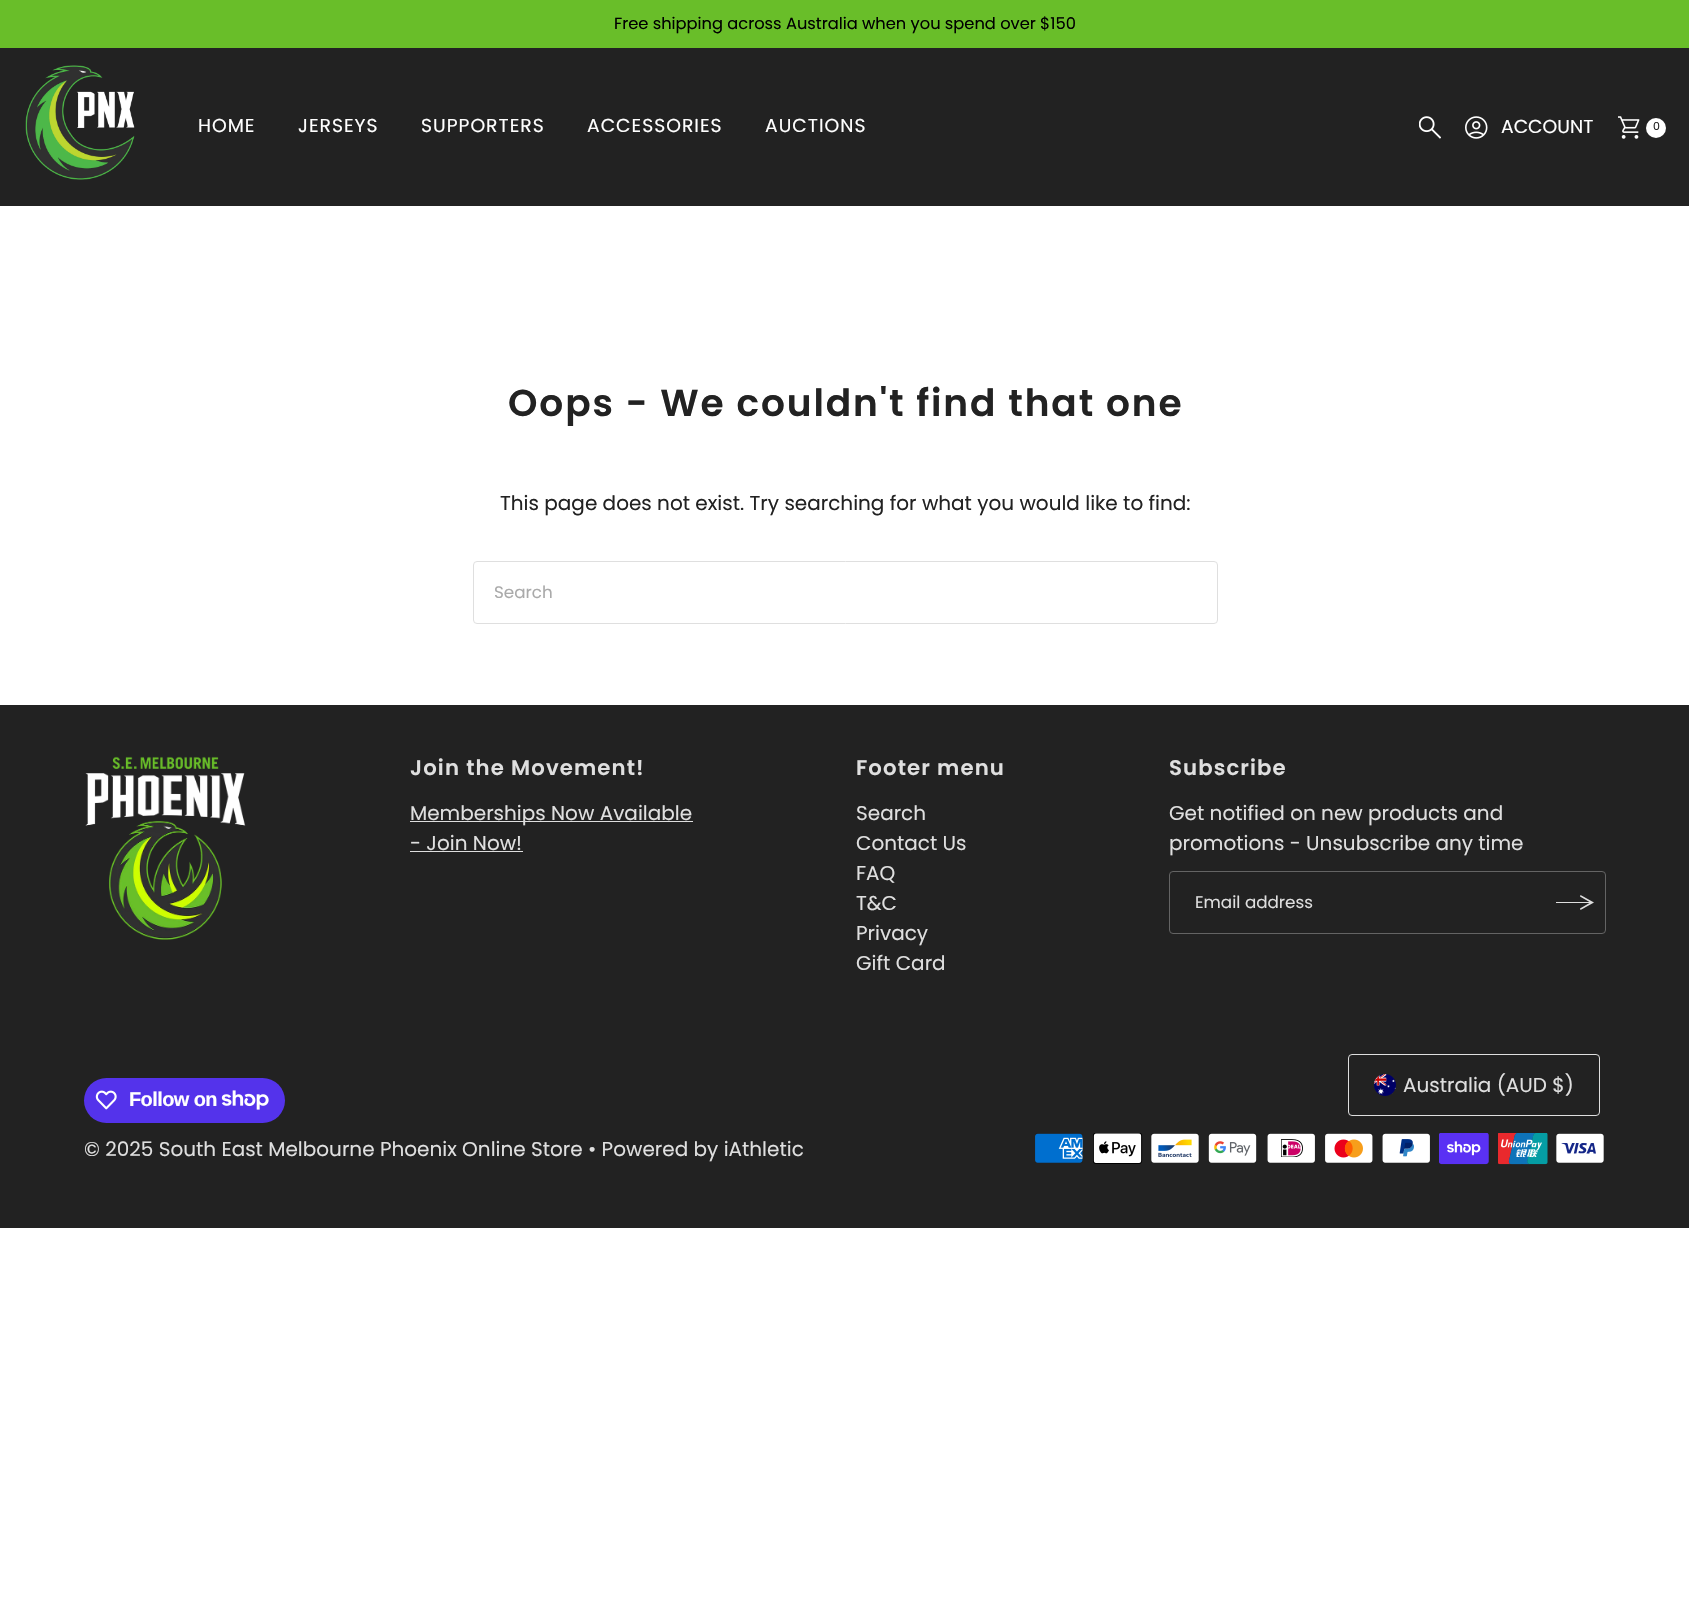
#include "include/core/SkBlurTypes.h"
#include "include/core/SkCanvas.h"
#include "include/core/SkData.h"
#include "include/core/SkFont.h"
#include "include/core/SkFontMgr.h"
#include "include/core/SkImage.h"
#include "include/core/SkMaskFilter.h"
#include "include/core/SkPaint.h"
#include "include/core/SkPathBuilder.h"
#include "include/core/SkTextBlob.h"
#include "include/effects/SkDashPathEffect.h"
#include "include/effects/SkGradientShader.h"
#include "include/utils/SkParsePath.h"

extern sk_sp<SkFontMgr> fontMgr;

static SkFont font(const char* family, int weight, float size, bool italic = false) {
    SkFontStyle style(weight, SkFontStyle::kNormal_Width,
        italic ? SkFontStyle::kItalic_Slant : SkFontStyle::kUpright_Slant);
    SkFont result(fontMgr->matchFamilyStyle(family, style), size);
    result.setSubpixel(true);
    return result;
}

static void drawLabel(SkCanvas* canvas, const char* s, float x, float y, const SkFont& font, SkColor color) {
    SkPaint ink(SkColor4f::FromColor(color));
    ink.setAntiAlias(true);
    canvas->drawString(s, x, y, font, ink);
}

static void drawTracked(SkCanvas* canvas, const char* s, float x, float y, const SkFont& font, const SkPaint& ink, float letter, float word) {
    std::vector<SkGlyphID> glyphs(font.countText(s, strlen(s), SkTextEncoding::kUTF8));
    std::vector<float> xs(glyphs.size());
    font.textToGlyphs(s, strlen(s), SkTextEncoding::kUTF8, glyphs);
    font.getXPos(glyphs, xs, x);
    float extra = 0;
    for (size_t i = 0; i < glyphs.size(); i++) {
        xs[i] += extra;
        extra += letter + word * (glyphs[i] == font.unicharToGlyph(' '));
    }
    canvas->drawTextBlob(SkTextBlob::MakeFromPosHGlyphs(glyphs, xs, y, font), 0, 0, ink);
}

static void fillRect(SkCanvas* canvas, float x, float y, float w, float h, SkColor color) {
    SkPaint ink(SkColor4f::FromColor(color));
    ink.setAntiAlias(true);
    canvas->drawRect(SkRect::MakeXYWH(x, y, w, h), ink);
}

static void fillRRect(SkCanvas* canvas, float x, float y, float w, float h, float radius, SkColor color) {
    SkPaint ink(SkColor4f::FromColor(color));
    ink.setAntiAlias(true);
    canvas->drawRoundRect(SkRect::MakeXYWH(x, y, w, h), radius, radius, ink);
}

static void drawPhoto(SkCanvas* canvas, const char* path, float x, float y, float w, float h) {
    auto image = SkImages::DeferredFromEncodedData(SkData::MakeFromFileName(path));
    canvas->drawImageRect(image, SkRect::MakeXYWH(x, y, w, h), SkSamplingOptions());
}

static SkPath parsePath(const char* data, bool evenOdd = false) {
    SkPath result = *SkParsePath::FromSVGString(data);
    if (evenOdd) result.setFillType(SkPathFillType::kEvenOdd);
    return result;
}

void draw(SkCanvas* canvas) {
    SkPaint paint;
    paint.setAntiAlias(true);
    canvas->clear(0xFFFFFFFF);
    fillRect(canvas, 0, 0, 1689, 48, 0xFF69BE29);
    SkFont font1 = font("Poppins", 400, 16.25f);
    drawLabel(canvas, "Free shipping across Australia when you spend over $150", 614, 29, font1, 0xFF000000);
    fillRect(canvas, 0, 48, 1689, 158, 0xFF222222);
    drawPhoto(canvas, "assets/img1.png", 25, 65, 110, 115);
    SkFont font2 = font("Poppins", 400, 18.75f);
    paint.setColor(0xFFFFFFFF);
    drawTracked(canvas, "HOME", 198, 132, font2, paint, 1, 0);
    drawTracked(canvas, "JERSEYS", 298, 132, font2, paint, 1, 0);
    drawTracked(canvas, "SUPPORTERS", 421, 132, font2, paint, 1, 0);
    drawTracked(canvas, "ACCESSORIES", 587, 132, font2, paint, 1, 0);
    drawTracked(canvas, "AUCTIONS", 765, 132, font2, paint, 1, 0);
    drawPhoto(canvas, "assets/img2.png", 1419, 116, 22, 23);
    drawPhoto(canvas, "assets/img3.png", 1465, 116, 23, 23);
    drawLabel(canvas, "ACCOUNT", 1501, 133, font2, 0xFFFFFFFF);
    drawPhoto(canvas, "assets/img4.png", 1618, 116, 22, 23);
    canvas->drawCircle(1656, 128, 10, paint);
    SkFont font3 = font("Poppins", 400, 11);
    drawLabel(canvas, "0", 1653, 130, font3, 0xFF222222);
    SkFont font4 = font("Poppins", 600, 37.5f);
    paint.setColor(0xFF222222);
    drawTracked(canvas, "Oops - We couldn't find that one", 508, 416, font4, paint, 1.9f, 0);
    SkFont font5 = font("Poppins", 400, 20);
    drawLabel(canvas, "This page does not exist. Try searching for what you would like to find:", 500, 510, font5, 0xFF222222);
    paint.setStroke(true);
    paint.setStrokeWidth(1);
    paint.setColor(0xFFDFDFDF);
    canvas->drawRoundRect(SkRect::MakeXYWH(473.5f, 561.5f, 744, 62), 3.5f, 3.5f, paint);
    SkFont font6 = font("Poppins", 400, 16.75f);
    drawLabel(canvas, "Search", 494, 598, font6, 0xFFAAAAAA);
    fillRect(canvas, 0, 705, 1689, 523, 0xFF222222);
    drawPhoto(canvas, "assets/img5.png", 85, 756, 161, 184);
    SkFont font7 = font("Poppins", 600, 21.25f);
    paint.setStroke(false);
    drawTracked(canvas, "Join the Movement!", 410, 775, font7, paint, 1.1f, 0);
    fillRect(canvas, 410, 821, 283, 1, 0xFFDFDFDF);
    drawLabel(canvas, "Memberships Now Available", 410, 820, font5, 0xFFDFDFDF);
    drawLabel(canvas, "- Join Now!", 410, 850, font5, 0xFFDFDFDF);
    fillRect(canvas, 410, 851, 113, 1, 0xFFDFDFDF);
    drawTracked(canvas, "Footer menu", 856, 775, font7, paint, 1.1f, 0);
    drawLabel(canvas, "Search", 856, 820, font5, 0xFFDFDFDF);
    drawLabel(canvas, "Contact Us", 856, 850, font5, 0xFFDFDFDF);
    drawLabel(canvas, "FAQ", 856, 880, font5, 0xFFDFDFDF);
    drawLabel(canvas, "T&C", 856, 910, font5, 0xFFDFDFDF);
    drawLabel(canvas, "Privacy", 856, 940, font5, 0xFFDFDFDF);
    drawLabel(canvas, "Gift Card", 856, 970, font5, 0xFFDFDFDF);
    drawTracked(canvas, "Subscribe", 1169, 775, font7, paint, 1.1f, 0);
    drawLabel(canvas, "Get notified on new products and", 1169, 820, font5, 0xFFDFDFDF);
    drawLabel(canvas, "promotions - Unsubscribe any time", 1169, 850, font5, 0xFFDFDFDF);
    paint.setStroke(true);
    paint.setColor(0xFF646464);
    canvas->drawRoundRect(SkRect::MakeXYWH(1169.5f, 871.5f, 436, 62), 3.5f, 3.5f, paint);
    drawLabel(canvas, "Email address", 1195, 908, font6, 0xFFDFDFDF);
    paint.setStroke(false);
    paint.setColor(0xFFDFDFDF);
    canvas->drawPath(parsePath("M1580.5 895L1594 902.5L1580.5 910L1580 908.5L1589.5 903H1556V902H1589.5L1580 896.5Z"), paint);
    paint.setStroke(true);
    canvas->drawRoundRect(SkRect::MakeXYWH(1348.5f, 1054.5f, 251, 61), 3.5f, 3.5f, paint);
    drawPhoto(canvas, "assets/img6.png", 1374, 1074, 22, 22);
    drawLabel(canvas, "Australia (AUD $)", 1403, 1092, font5, 0xFFDFDFDF);
    drawPhoto(canvas, "assets/img7.png", 1035, 1133, 48, 30);
    drawPhoto(canvas, "assets/img8.png", 1093, 1133, 50, 31);
    drawPhoto(canvas, "assets/img9.png", 1151, 1133, 48, 30);
    drawPhoto(canvas, "assets/img10.png", 1208, 1133, 49, 30);
    drawPhoto(canvas, "assets/img11.png", 1267, 1133, 48, 30);
    drawPhoto(canvas, "assets/img12.png", 1325, 1133, 48, 30);
    drawPhoto(canvas, "assets/img13.png", 1382, 1133, 48, 30);
    drawPhoto(canvas, "assets/img14.png", 1439, 1133, 50, 32);
    drawPhoto(canvas, "assets/img15.png", 1498, 1133, 50, 32);
    drawPhoto(canvas, "assets/img16.png", 1556, 1133, 48, 30);
    fillRRect(canvas, 84, 1078, 201, 45, 22.5f, 0xFF5433EB);
    drawPhoto(canvas, "assets/img17.png", 95, 1090, 22, 20);
    SkFont font8 = font("Liberation Sans", 700, 20);
    paint.setStroke(false);
    paint.setColor(0xFFFFFFFF);
    drawTracked(canvas, "Follow on", 129, 1106, font8, paint, -0.6f, 0);
    drawPhoto(canvas, "assets/img18.png", 221, 1090, 48, 20);
    drawLabel(canvas, "© 2025 South East Melbourne Phoenix Online Store • Powered by iAthletic", 84, 1156, font5, 0xFFDFDFDF);
}
